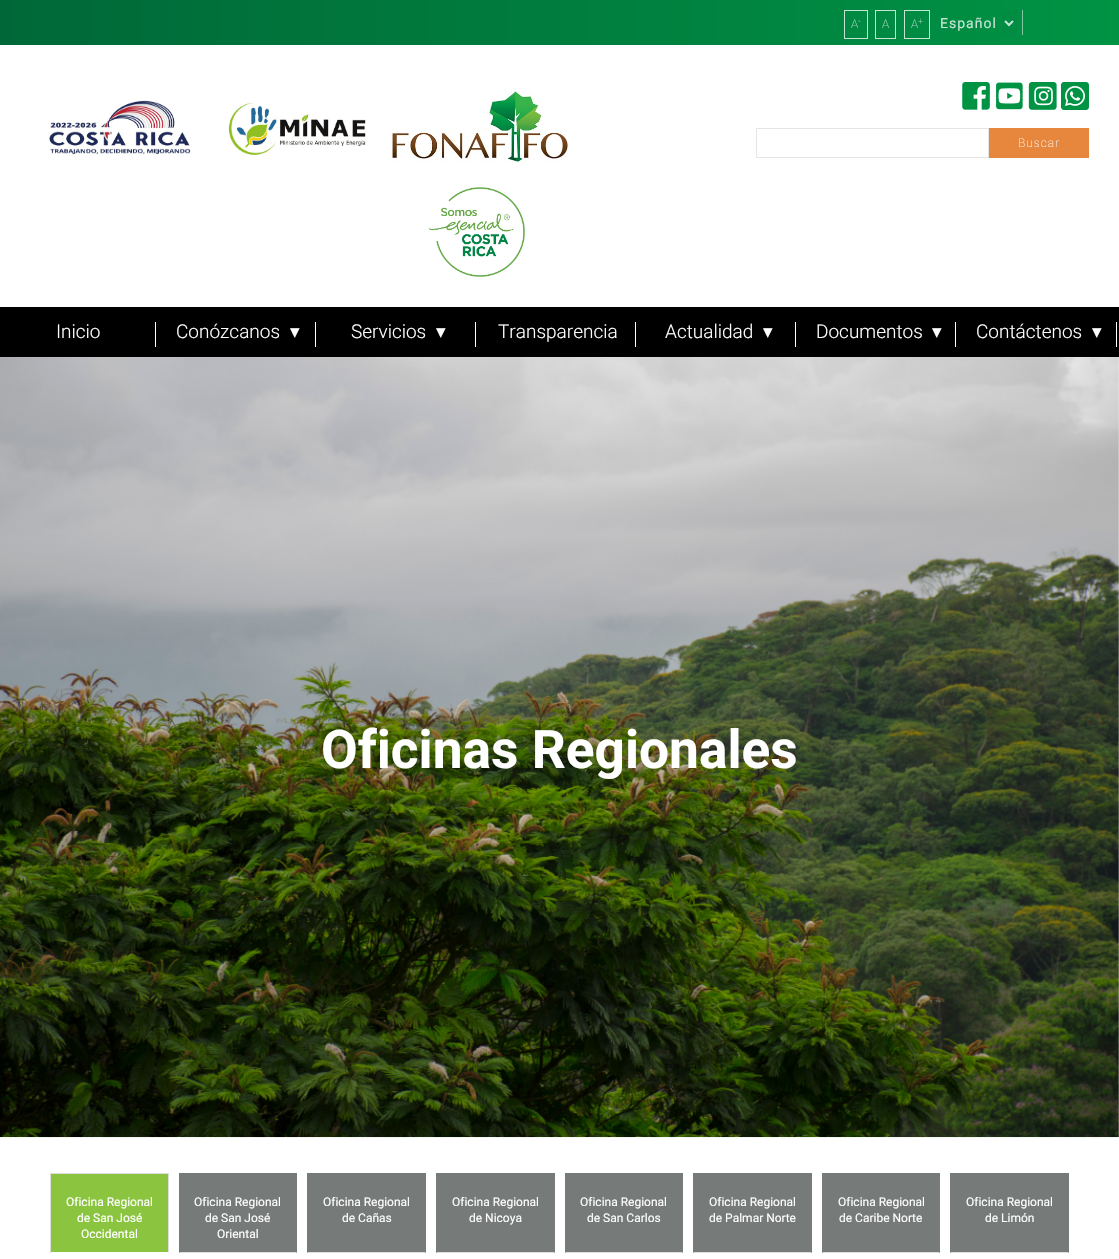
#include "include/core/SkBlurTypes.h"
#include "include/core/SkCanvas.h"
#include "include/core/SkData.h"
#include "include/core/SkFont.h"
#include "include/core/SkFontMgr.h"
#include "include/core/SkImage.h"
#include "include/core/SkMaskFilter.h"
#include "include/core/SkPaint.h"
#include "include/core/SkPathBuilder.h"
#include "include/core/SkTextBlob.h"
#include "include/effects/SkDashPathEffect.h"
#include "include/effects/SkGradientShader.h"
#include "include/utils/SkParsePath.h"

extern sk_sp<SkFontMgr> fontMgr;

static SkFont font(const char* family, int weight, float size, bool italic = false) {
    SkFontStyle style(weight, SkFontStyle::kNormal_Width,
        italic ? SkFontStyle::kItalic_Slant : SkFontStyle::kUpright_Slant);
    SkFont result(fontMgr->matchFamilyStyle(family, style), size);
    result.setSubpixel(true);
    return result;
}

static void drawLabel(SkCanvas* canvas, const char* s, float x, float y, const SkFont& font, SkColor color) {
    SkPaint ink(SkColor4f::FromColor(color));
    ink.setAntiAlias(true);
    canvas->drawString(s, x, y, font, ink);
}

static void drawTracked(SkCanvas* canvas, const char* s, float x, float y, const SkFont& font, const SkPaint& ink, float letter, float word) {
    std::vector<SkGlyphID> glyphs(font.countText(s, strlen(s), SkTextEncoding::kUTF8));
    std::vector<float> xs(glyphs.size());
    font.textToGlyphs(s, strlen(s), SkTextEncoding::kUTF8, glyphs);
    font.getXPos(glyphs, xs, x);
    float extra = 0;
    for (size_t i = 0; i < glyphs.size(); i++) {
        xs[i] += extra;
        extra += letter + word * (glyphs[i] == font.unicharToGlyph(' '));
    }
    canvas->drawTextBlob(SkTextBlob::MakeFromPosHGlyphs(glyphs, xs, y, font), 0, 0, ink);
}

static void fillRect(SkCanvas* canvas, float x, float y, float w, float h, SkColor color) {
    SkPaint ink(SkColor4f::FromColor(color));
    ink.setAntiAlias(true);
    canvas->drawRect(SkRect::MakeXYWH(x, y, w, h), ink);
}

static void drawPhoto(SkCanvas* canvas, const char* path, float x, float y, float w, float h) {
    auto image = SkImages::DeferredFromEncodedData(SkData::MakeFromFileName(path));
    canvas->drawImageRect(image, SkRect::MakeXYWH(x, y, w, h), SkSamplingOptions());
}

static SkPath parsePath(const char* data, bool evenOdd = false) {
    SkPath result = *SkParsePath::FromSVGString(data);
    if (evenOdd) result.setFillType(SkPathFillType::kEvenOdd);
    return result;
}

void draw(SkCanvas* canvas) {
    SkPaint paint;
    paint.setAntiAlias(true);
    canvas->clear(0xFFFFFFFF);
    {
        const SkColor colors[] = {0xFF006838, 0xFF009344};
        const float stops[] = {0, 1};
        const SkPoint ends[] = {{0, 23}, {1119, 22}};
        paint.setShader(SkGradientShader::MakeLinear(ends, colors, stops, 2, SkTileMode::kClamp));
        paint.setAlpha(255);
    }
    canvas->drawRect(SkRect::MakeXYWH(0, 0, 1119, 45), paint);
    paint.setStroke(true);
    paint.setStrokeWidth(1);
    paint.setShader(nullptr);
    paint.setColor(0xFFC4E4D3);
    canvas->drawRect(SkRect::MakeXYWH(844.5f, 10.5f, 23, 28), paint);
    SkFont font1 = font("Roboto", 100, 12);
    drawLabel(canvas, "A", 851, 28, font1, 0xFFC4E5D4);
    SkFont font2 = font("Roboto", 100, 9);
    drawLabel(canvas, "-", 858, 24, font2, 0xFFC4E5D4);
    canvas->drawRect(SkRect::MakeXYWH(875.5f, 10.5f, 20, 28), paint);
    drawLabel(canvas, "A", 882, 28, font1, 0xFFC4E5D4);
    paint.setColor(0xFFC4E4D4);
    canvas->drawRect(SkRect::MakeXYWH(904.5f, 10.5f, 25, 28), paint);
    drawLabel(canvas, "A", 911, 28, font1, 0xFFC4E5D4);
    drawLabel(canvas, "+", 918, 24, font2, 0xFFC4E5D4);
    fillRect(canvas, 1002, 10, 15, 26, 0xFF008C42);
    paint.setStrokeWidth(2);
    paint.setColor(0xFFC4E5D4);
    canvas->drawPath(parsePath("M1005 21L1009 25L1013 21"), paint);
    SkFont font3 = font("Roboto", 400, 14);
    paint.setStroke(false);
    drawTracked(canvas, "Español", 940, 28, font3, paint, 1, 0);
    fillRect(canvas, 1022, 10, 1, 25, 0xFF80C7A1);
    drawPhoto(canvas, "assets/img1.png", 49, 100, 142, 55);
    drawPhoto(canvas, "assets/img2.png", 228, 102, 138, 54);
    drawPhoto(canvas, "assets/img3.png", 390, 89, 179, 73);
    drawPhoto(canvas, "assets/img4.png", 428, 187, 97, 90);
    drawPhoto(canvas, "assets/img5.png", 962, 82, 28, 28);
    drawPhoto(canvas, "assets/img6.png", 996, 82, 27, 28);
    drawPhoto(canvas, "assets/img7.png", 1028, 82, 29, 28);
    drawPhoto(canvas, "assets/img8.png", 1061, 82, 28, 28);
    paint.setStroke(true);
    paint.setStrokeWidth(1);
    paint.setColor(0xFFE5E5E5);
    canvas->drawRect(SkRect::MakeXYWH(756.5f, 128.5f, 232, 29), paint);
    fillRect(canvas, 989, 128, 100, 30, 0xFFE7863D);
    paint.setStroke(false);
    paint.setColor(0xFFFFFFFF);
    drawTracked(canvas, "Buscar", 1018, 147, font1, paint, 1, 0);
    fillRect(canvas, 0, 307, 1119, 50, 0xFF000000);
    SkFont font4 = font("Roboto", 300, 19);
    drawLabel(canvas, "Inicio", 56, 338, font4, 0xFFFFFFFF);
    fillRect(canvas, 155, 322, 1, 25, 0xFFFFFFFF);
    drawLabel(canvas, "Conózcanos", 176, 338, font4, 0xFFFFFFFF);
    SkFont font5 = font("DejaVu Sans", 400, 19);
    drawLabel(canvas, "▾", 290, 338, font5, 0xFFFFFFFF);
    fillRect(canvas, 315, 322, 1, 25, 0xFFFFFFFF);
    drawLabel(canvas, "Servicios", 351, 338, font4, 0xFFFFFFFF);
    drawLabel(canvas, "▾", 436, 338, font5, 0xFFFFFFFF);
    fillRect(canvas, 475, 322, 1, 25, 0xFFFFFFFF);
    drawLabel(canvas, "Transparencia", 498, 338, font4, 0xFFFFFFFF);
    fillRect(canvas, 635, 322, 1, 25, 0xFFFFFFFF);
    drawLabel(canvas, "Actualidad", 665, 338, font4, 0xFFFFFFFF);
    drawLabel(canvas, "▾", 763, 338, font5, 0xFFFFFFFF);
    fillRect(canvas, 795, 322, 1, 25, 0xFFFFFFFF);
    drawLabel(canvas, "Documentos", 816, 338, font4, 0xFFFFFFFF);
    drawLabel(canvas, "▾", 932, 338, font5, 0xFFFFFFFF);
    fillRect(canvas, 955, 322, 1, 25, 0xFFFFFFFF);
    drawLabel(canvas, "Contáctenos", 976, 338, font4, 0xFFFFFFFF);
    drawLabel(canvas, "▾", 1092, 338, font5, 0xFFFFFFFF);
    fillRect(canvas, 1116, 322, 1, 25, 0xFFFFFFFF);
    drawPhoto(canvas, "assets/img9.png", 0, 357, 1119, 781);
    SkFont font6 = font("Roboto", 700, 53.25f);
    drawLabel(canvas, "Oficinas Regionales", 321, 768, font6, 0xFFFFFFFF);
    fillRect(canvas, 51, 1174, 117, 78, 0xFF8BC53F);
    fillRect(canvas, 50, 1173, 119, 1, 0xFFDDDDDD);
    fillRect(canvas, 168, 1173, 1, 80, 0xFFDDDDDD);
    fillRect(canvas, 168, 1252, 1, 1, 0xFFFFFFFF);
    fillRect(canvas, 50, 1173, 1, 80, 0xFFDDDDDD);
    SkFont font7 = font("Roboto", 400, 12);
    drawLabel(canvas, "Oficina Regional", 66, 1206, font7, 0xFFFFFFFF);
    drawLabel(canvas, "de San José", 77, 1222, font7, 0xFFFFFFFF);
    drawLabel(canvas, "Occidental", 81, 1238, font7, 0xFFFFFFFF);
    fillRect(canvas, 179, 1173, 118, 80, 0xFF767A78);
    paint.setColor(0xFFDDDDDD);
    canvas->drawPath(parsePath("M297 1253H179L180 1252H296Z"), paint);
    drawLabel(canvas, "Oficina Regional", 194, 1206, font7, 0xFFFFFFFF);
    drawLabel(canvas, "de San José", 205, 1222, font7, 0xFFFFFFFF);
    drawLabel(canvas, "Oriental", 217, 1238, font7, 0xFFFFFFFF);
    fillRect(canvas, 307, 1173, 119, 80, 0xFF767A78);
    canvas->drawPath(parsePath("M426 1253H307L308 1252H425Z"), paint);
    drawLabel(canvas, "Oficina Regional", 323, 1206, font7, 0xFFFFFFFF);
    drawLabel(canvas, "de Cañas", 342, 1222, font7, 0xFFFFFFFF);
    fillRect(canvas, 436, 1173, 119, 80, 0xFF767A78);
    canvas->drawPath(parsePath("M555 1253H436L437 1252H554Z"), paint);
    drawLabel(canvas, "Oficina Regional", 452, 1206, font7, 0xFFFFFFFF);
    drawLabel(canvas, "de Nicoya", 469, 1222, font7, 0xFFFFFFFF);
    fillRect(canvas, 565, 1173, 118, 80, 0xFF767A78);
    canvas->drawPath(parsePath("M683 1253H565L566 1252H682Z"), paint);
    drawLabel(canvas, "Oficina Regional", 580, 1206, font7, 0xFFFFFFFF);
    drawLabel(canvas, "de San Carlos", 587, 1222, font7, 0xFFFFFFFF);
    fillRect(canvas, 693, 1173, 119, 80, 0xFF767A78);
    canvas->drawPath(parsePath("M812 1253H693L694 1252H811Z"), paint);
    drawLabel(canvas, "Oficina Regional", 709, 1206, font7, 0xFFFFFFFF);
    drawLabel(canvas, "de Palmar Norte", 709, 1222, font7, 0xFFFFFFFF);
    fillRect(canvas, 822, 1173, 118, 80, 0xFF767A78);
    canvas->drawPath(parsePath("M940 1253H822L823 1252H939Z"), paint);
    drawLabel(canvas, "Oficina Regional", 838, 1206, font7, 0xFFFFFFFF);
    drawLabel(canvas, "de Caribe Norte", 839, 1222, font7, 0xFFFFFFFF);
    fillRect(canvas, 950, 1173, 119, 80, 0xFF767A78);
    canvas->drawPath(parsePath("M1069 1253H950L951 1252H1068Z"), paint);
    drawLabel(canvas, "Oficina Regional", 966, 1206, font7, 0xFFFFFFFF);
    drawLabel(canvas, "de Limón", 985, 1222, font7, 0xFFFFFFFF);
}
